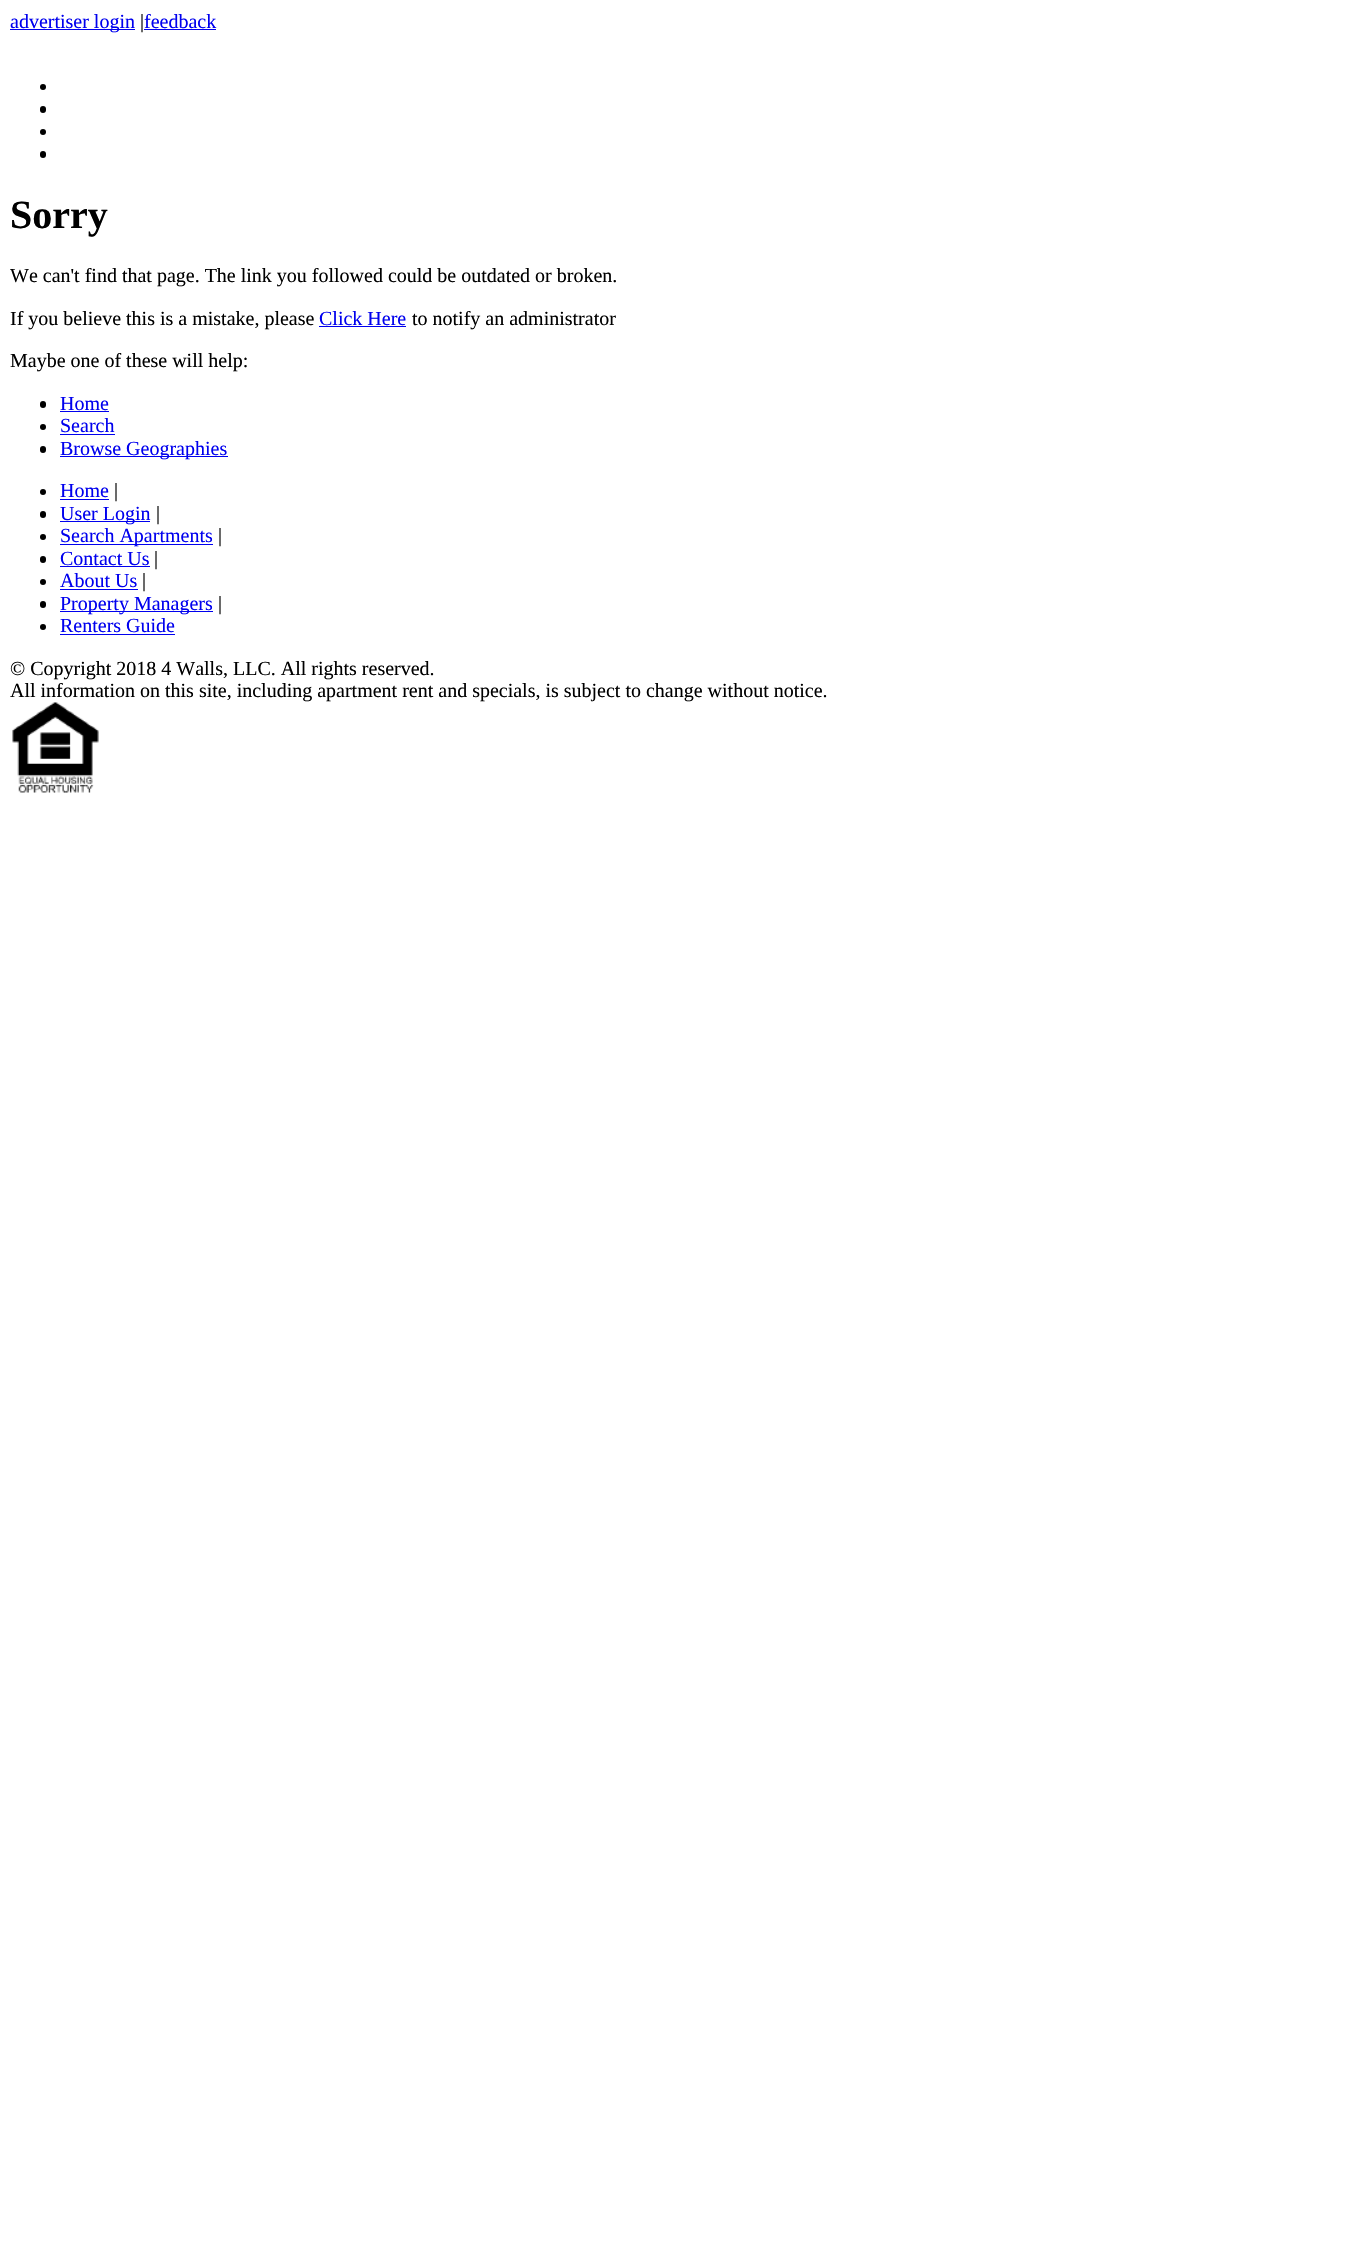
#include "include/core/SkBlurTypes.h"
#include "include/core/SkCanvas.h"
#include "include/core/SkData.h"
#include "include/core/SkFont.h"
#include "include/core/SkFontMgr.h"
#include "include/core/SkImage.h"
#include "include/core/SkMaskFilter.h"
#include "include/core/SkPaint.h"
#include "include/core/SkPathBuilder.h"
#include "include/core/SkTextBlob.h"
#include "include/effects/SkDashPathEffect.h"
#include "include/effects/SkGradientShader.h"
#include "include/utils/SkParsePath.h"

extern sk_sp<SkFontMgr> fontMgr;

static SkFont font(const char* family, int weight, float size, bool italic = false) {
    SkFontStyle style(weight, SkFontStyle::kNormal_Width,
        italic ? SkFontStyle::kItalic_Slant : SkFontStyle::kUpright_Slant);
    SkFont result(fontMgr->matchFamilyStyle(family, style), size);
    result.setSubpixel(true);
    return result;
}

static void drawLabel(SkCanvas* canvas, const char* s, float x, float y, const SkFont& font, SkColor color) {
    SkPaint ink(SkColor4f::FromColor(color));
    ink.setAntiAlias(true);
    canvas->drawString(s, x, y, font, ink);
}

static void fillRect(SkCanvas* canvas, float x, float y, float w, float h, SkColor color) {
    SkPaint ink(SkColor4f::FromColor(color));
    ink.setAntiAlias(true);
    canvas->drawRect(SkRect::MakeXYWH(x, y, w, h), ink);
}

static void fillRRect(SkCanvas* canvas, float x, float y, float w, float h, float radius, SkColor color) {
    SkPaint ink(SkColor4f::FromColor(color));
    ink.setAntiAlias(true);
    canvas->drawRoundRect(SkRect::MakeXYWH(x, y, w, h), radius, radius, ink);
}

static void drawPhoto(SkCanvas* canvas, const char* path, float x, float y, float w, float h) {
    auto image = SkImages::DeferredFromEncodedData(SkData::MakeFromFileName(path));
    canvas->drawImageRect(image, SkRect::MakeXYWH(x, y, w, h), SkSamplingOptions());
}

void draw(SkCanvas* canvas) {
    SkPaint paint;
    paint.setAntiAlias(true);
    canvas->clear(0xFFFFFFFF);
    fillRect(canvas, 10, 29, 125, 1, 0xFF0000EE);
    SkFont font1 = font("Liberation Serif", 400, 20);
    drawLabel(canvas, "advertiser login", 10, 28, font1, 0xFF0000EE);
    drawLabel(canvas, "|", 140, 28, font1, 0xFF000000);
    drawLabel(canvas, "feedback", 144, 28, font1, 0xFF0000EE);
    fillRect(canvas, 144, 29, 72, 1, 0xFF0000EE);
    paint.setColor(0xFF000000);
    canvas->drawCircle(43, 87, 3, paint);
    fillRRect(canvas, 40, 106, 6, 7, 3, 0xFF000000);
    canvas->drawCircle(43, 132, 3, paint);
    fillRRect(canvas, 40, 151, 6, 7, 3, 0xFF000000);
    SkFont font2 = font("Liberation Serif", 700, 40);
    drawLabel(canvas, "Sorry", 10, 228, font2, 0xFF000000);
    drawLabel(canvas, "We can't find that page. The link you followed could be outdated or broken.", 10, 282, font1, 0xFF000000);
    drawLabel(canvas, "If you believe this is a mistake, please", 10, 325, font1, 0xFF000000);
    drawLabel(canvas, "Click Here", 319, 325, font1, 0xFF0000EE);
    fillRect(canvas, 319, 326, 87, 1, 0xFF0000EE);
    drawLabel(canvas, "to notify an administrator", 412, 325, font1, 0xFF000000);
    drawLabel(canvas, "Maybe one of these will help:", 10, 367, font1, 0xFF000000);
    fillRRect(canvas, 40, 401, 6, 7, 3, 0xFF000000);
    drawLabel(canvas, "Home", 60, 410, font1, 0xFF0000EE);
    fillRect(canvas, 60, 411, 49, 1, 0xFF0000EE);
    canvas->drawCircle(43, 427, 3, paint);
    drawLabel(canvas, "Search", 60, 432, font1, 0xFF0000EE);
    fillRect(canvas, 60, 434, 55, 1, 0xFF0000EE);
    fillRRect(canvas, 40, 446, 6, 7, 3, 0xFF000000);
    fillRect(canvas, 60, 456, 168, 1, 0xFF0000EE);
    drawLabel(canvas, "Browse Geographies", 60, 455, font1, 0xFF0000EE);
    canvas->drawCircle(43, 492, 3, paint);
    drawLabel(canvas, "Home", 60, 497, font1, 0xFF0000EE);
    fillRect(canvas, 60, 499, 49, 1, 0xFF0000EE);
    drawLabel(canvas, "|", 114, 497, font1, 0xFF000000);
    fillRRect(canvas, 40, 511, 6, 7, 3, 0xFF000000);
    fillRect(canvas, 60, 521, 90, 1, 0xFF0000EE);
    drawLabel(canvas, "User Login", 60, 520, font1, 0xFF0000EE);
    drawLabel(canvas, "|", 156, 520, font1, 0xFF000000);
    canvas->drawCircle(43, 537, 3, paint);
    fillRect(canvas, 60, 544, 153, 1, 0xFF0000EE);
    drawLabel(canvas, "Search Apartments", 60, 542, font1, 0xFF0000EE);
    drawLabel(canvas, "|", 218, 542, font1, 0xFF000000);
    fillRRect(canvas, 40, 556, 6, 7, 3, 0xFF000000);
    drawLabel(canvas, "Contact Us", 60, 565, font1, 0xFF0000EE);
    fillRect(canvas, 60, 566, 90, 1, 0xFF0000EE);
    drawLabel(canvas, "|", 154, 565, font1, 0xFF000000);
    canvas->drawCircle(43, 582, 3, paint);
    drawLabel(canvas, "About Us", 60, 587, font1, 0xFF0000EE);
    fillRect(canvas, 60, 589, 78, 1, 0xFF0000EE);
    drawLabel(canvas, "|", 142, 587, font1, 0xFF000000);
    fillRRect(canvas, 40, 601, 6, 7, 3, 0xFF000000);
    fillRect(canvas, 60, 611, 153, 1, 0xFF0000EE);
    drawLabel(canvas, "Property Managers", 60, 610, font1, 0xFF0000EE);
    drawLabel(canvas, "|", 218, 610, font1, 0xFF000000);
    canvas->drawCircle(43, 627, 3, paint);
    drawLabel(canvas, "Renters Guide", 60, 632, font1, 0xFF0000EE);
    fillRect(canvas, 60, 634, 115, 1, 0xFF0000EE);
    drawLabel(canvas, "© Copyright 2018 4 Walls, LLC. All rights reserved.", 10, 675, font1, 0xFF000000);
    drawLabel(canvas, "All information on this site, including apartment rent and specials, is subject to change without notice.", 10, 697, font1, 0xFF000000);
    drawPhoto(canvas, "assets/img1.png", 12, 702, 87, 91);
}
